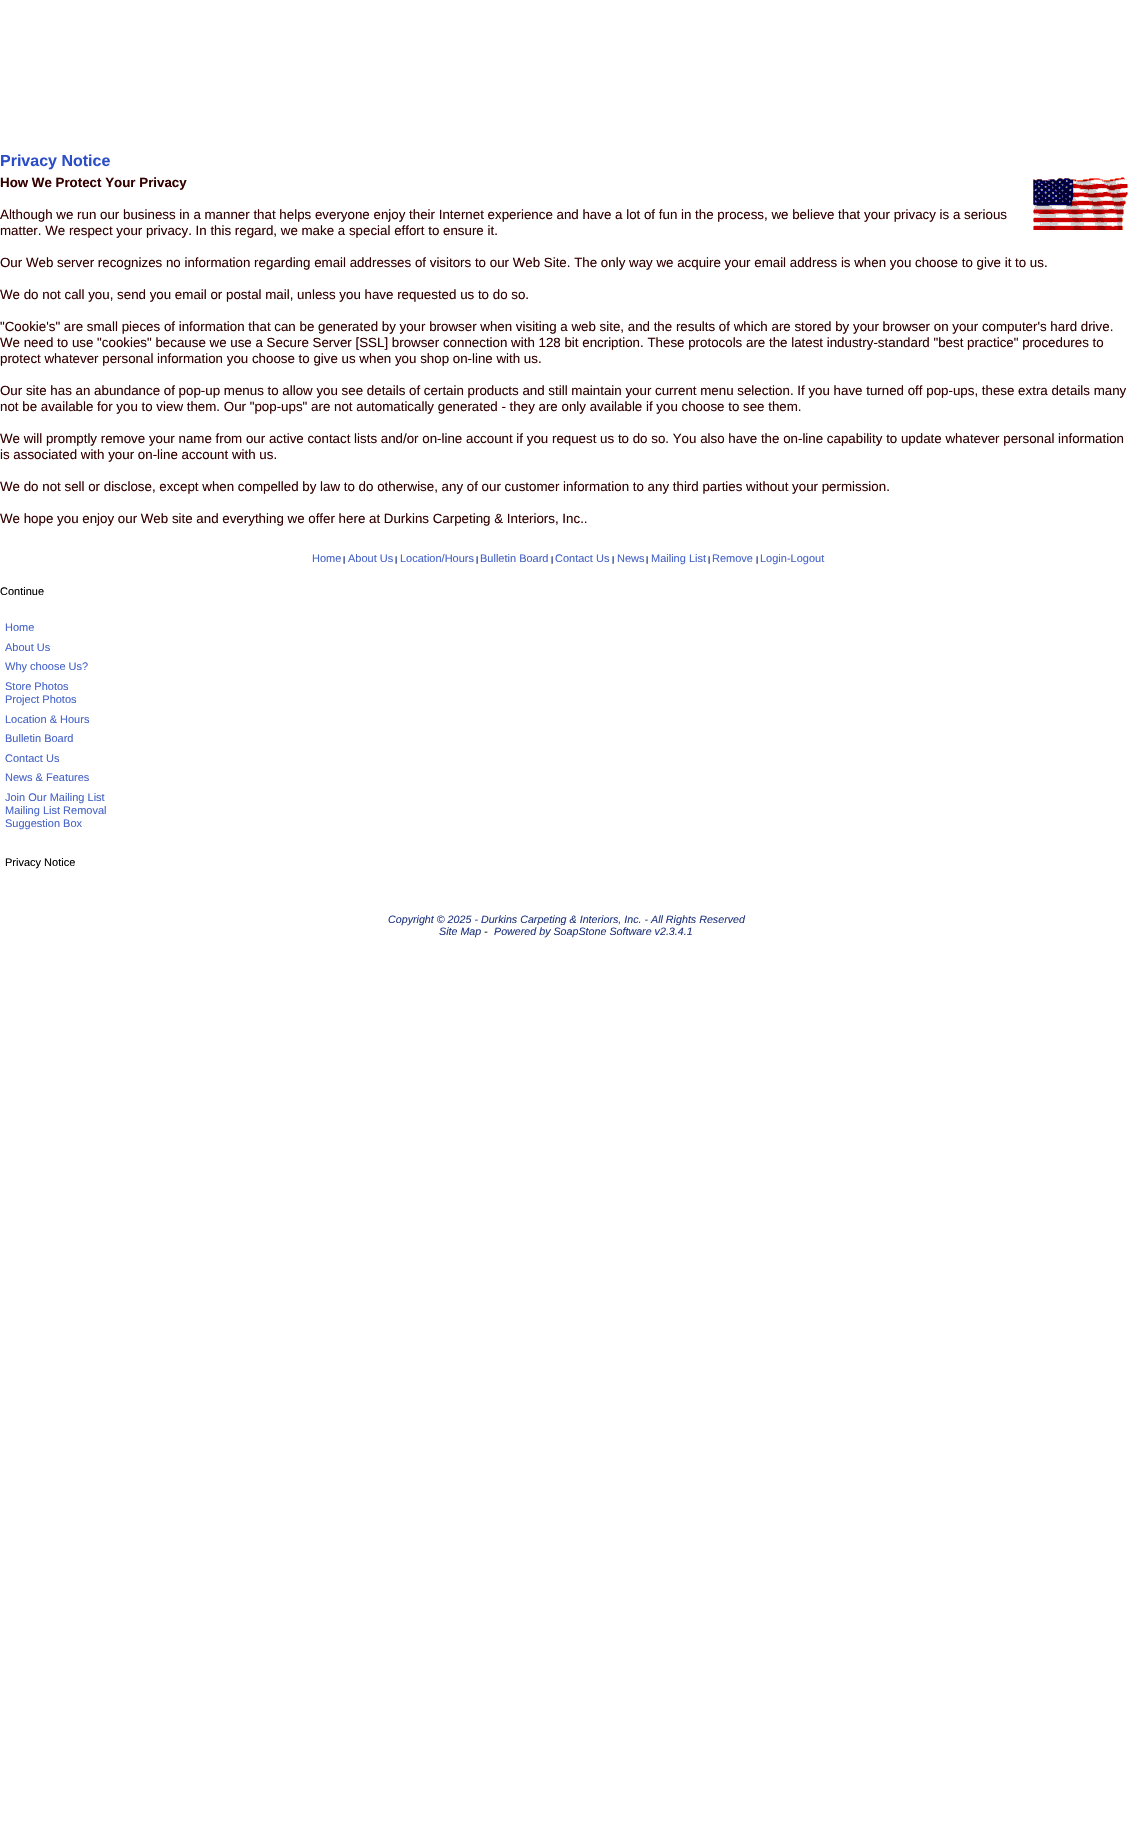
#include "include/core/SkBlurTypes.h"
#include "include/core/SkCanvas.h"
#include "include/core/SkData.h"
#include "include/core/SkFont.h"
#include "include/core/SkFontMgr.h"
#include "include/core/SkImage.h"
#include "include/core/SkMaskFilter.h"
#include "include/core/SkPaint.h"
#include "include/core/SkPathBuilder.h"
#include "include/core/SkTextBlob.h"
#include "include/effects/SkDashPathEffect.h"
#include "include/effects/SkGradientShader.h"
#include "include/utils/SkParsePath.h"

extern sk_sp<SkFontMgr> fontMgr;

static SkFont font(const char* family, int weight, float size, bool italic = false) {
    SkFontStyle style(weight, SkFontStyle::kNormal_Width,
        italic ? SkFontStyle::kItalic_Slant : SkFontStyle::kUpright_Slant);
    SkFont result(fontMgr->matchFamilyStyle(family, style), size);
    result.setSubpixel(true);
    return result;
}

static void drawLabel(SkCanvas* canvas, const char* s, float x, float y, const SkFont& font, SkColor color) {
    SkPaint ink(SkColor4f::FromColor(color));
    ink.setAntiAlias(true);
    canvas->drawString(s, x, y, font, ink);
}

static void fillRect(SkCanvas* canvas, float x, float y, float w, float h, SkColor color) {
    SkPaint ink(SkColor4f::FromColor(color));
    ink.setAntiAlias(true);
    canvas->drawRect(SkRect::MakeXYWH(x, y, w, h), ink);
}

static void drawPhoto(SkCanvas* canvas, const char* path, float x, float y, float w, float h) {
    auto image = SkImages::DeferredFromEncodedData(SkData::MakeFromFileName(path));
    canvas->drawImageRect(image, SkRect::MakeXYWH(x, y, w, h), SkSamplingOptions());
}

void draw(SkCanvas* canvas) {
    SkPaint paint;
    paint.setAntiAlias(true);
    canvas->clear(0xFFFFFFFF);
    SkFont font1 = font("Liberation Sans", 700, 16);
    drawLabel(canvas, "Privacy Notice", 0, 166, font1, 0xFF2B4EC7);
    SkFont font2 = font("Liberation Sans", 700, 13.33f);
    drawLabel(canvas, "How We Protect Your Privacy", 0, 187, font2, 0xFF330000);
    drawPhoto(canvas, "assets/img1.png", 1033, 177, 95, 53);
    SkFont font3 = font("Liberation Sans", 400, 13.33f);
    drawLabel(canvas, "Although we run our business in a manner that helps everyone enjoy their Internet experience and have a lot of fun in the process, we believe that your privacy is a serious", 0, 219, font3, 0xFF330000);
    drawLabel(canvas, "matter. We respect your privacy. In this regard, we make a special effort to ensure it.", 0, 235, font3, 0xFF330000);
    drawLabel(canvas, "Our Web server recognizes no information regarding email addresses of visitors to our Web Site. The only way we acquire your email address is when you choose to give it to us.", 0, 267, font3, 0xFF330000);
    drawLabel(canvas, "We do not call you, send you email or postal mail, unless you have requested us to do so.", 0, 299, font3, 0xFF330000);
    drawLabel(canvas, "\"Cookie's\" are small pieces of information that can be generated by your browser when visiting a web site, and the results of which are stored by your browser on your computer's hard drive.", 0, 331, font3, 0xFF330000);
    drawLabel(canvas, "We need to use \"cookies\" because we use a Secure Server [SSL] browser connection with 128 bit encription. These protocols are the latest industry-standard \"best practice\" procedures to", 0, 347, font3, 0xFF330000);
    drawLabel(canvas, "protect whatever personal information you choose to give us when you shop on-line with us.", 0, 363, font3, 0xFF330000);
    drawLabel(canvas, "Our site has an abundance of pop-up menus to allow you see details of certain products and still maintain your current menu selection. If you have turned off pop-ups, these extra details many", 0, 395, font3, 0xFF330000);
    drawLabel(canvas, "not be available for you to view them. Our \"pop-ups\" are not automatically generated - they are only available if you choose to see them.", 0, 411, font3, 0xFF330000);
    drawLabel(canvas, "We will promptly remove your name from our active contact lists and/or on-line account if you request us to do so. You also have the on-line capability to update whatever personal information", 0, 443, font3, 0xFF330000);
    drawLabel(canvas, "is associated with your on-line account with us.", 0, 459, font3, 0xFF330000);
    drawLabel(canvas, "We do not sell or disclose, except when compelled by law to do otherwise, any of our customer information to any third parties without your permission.", 0, 491, font3, 0xFF330000);
    drawLabel(canvas, "We hope you enjoy our Web site and everything we offer here at Durkins Carpeting & Interiors, Inc..", 0, 523, font3, 0xFF330000);
    SkFont font4 = font("Liberation Sans", 400, 11);
    drawLabel(canvas, "Home", 312, 562, font4, 0xFF4663C7);
    SkFont font5 = font("Liberation Sans", 700, 8);
    drawLabel(canvas, "|", 343, 562, font5, 0xFF233880);
    drawLabel(canvas, "About Us", 348, 562, font4, 0xFF4663C7);
    drawLabel(canvas, "|", 395, 562, font5, 0xFF233880);
    drawLabel(canvas, "Location/Hours", 400, 562, font4, 0xFF4663C7);
    drawLabel(canvas, "|", 476, 562, font5, 0xFF233880);
    drawLabel(canvas, "Bulletin Board", 480, 562, font4, 0xFF4663C7);
    drawLabel(canvas, "|", 551, 562, font5, 0xFF233880);
    drawLabel(canvas, "Contact Us", 555, 562, font4, 0xFF4663C7);
    drawLabel(canvas, "|", 612, 562, font5, 0xFF233880);
    drawLabel(canvas, "News", 617, 562, font4, 0xFF4663C7);
    drawLabel(canvas, "|", 646, 562, font5, 0xFF233880);
    drawLabel(canvas, "Mailing List", 651, 562, font4, 0xFF4663C7);
    drawLabel(canvas, "|", 708, 562, font5, 0xFF233880);
    drawLabel(canvas, "Remove", 712, 562, font4, 0xFF4663C7);
    drawLabel(canvas, "|", 756, 562, font5, 0xFF233880);
    drawLabel(canvas, "Login-Logout", 760, 562, font4, 0xFF4663C7);
    drawLabel(canvas, "Continue", 0, 595, font4, 0xFF000000);
    drawLabel(canvas, "Home", 5, 631, font4, 0xFF4663C7);
    drawLabel(canvas, "About Us", 5, 651, font4, 0xFF4663C7);
    drawLabel(canvas, "Why choose Us?", 5, 670, font4, 0xFF4663C7);
    drawLabel(canvas, "Store Photos", 5, 690, font4, 0xFF4663C7);
    drawLabel(canvas, "Project Photos", 5, 703, font4, 0xFF4663C7);
    drawLabel(canvas, "Location & Hours", 5, 723, font4, 0xFF4663C7);
    drawLabel(canvas, "Bulletin Board", 5, 742, font4, 0xFF4663C7);
    drawLabel(canvas, "Contact Us", 5, 762, font4, 0xFF4663C7);
    drawLabel(canvas, "News & Features", 5, 781, font4, 0xFF4663C7);
    drawLabel(canvas, "Join Our Mailing List", 5, 801, font4, 0xFF4663C7);
    drawLabel(canvas, "Mailing List Removal", 5, 814, font4, 0xFF4663C7);
    drawLabel(canvas, "Suggestion Box", 5, 827, font4, 0xFF4663C7);
    drawLabel(canvas, "Privacy Notice", 5, 866, font4, 0xFF000000);
    SkFont font6 = font("Liberation Sans", 400, 10.7f, true);
    drawLabel(canvas, "Copyright © 2025 - Durkins Carpeting & Interiors, Inc. - All Rights Reserved", 388, 923, font6, 0xFF233880);
    drawLabel(canvas, "Site Map", 439, 935, font6, 0xFF233880);
    SkFont font7 = font("Liberation Sans", 400, 11, true);
    drawLabel(canvas, "-", 484, 935, font7, 0xFF000000);
    drawLabel(canvas, "Powered by SoapStone Software v2.3.4.1", 494, 935, font6, 0xFF233880);
    fillRect(canvas, 536, 925, 142, 1, 0xFFFFFFFF);
}
